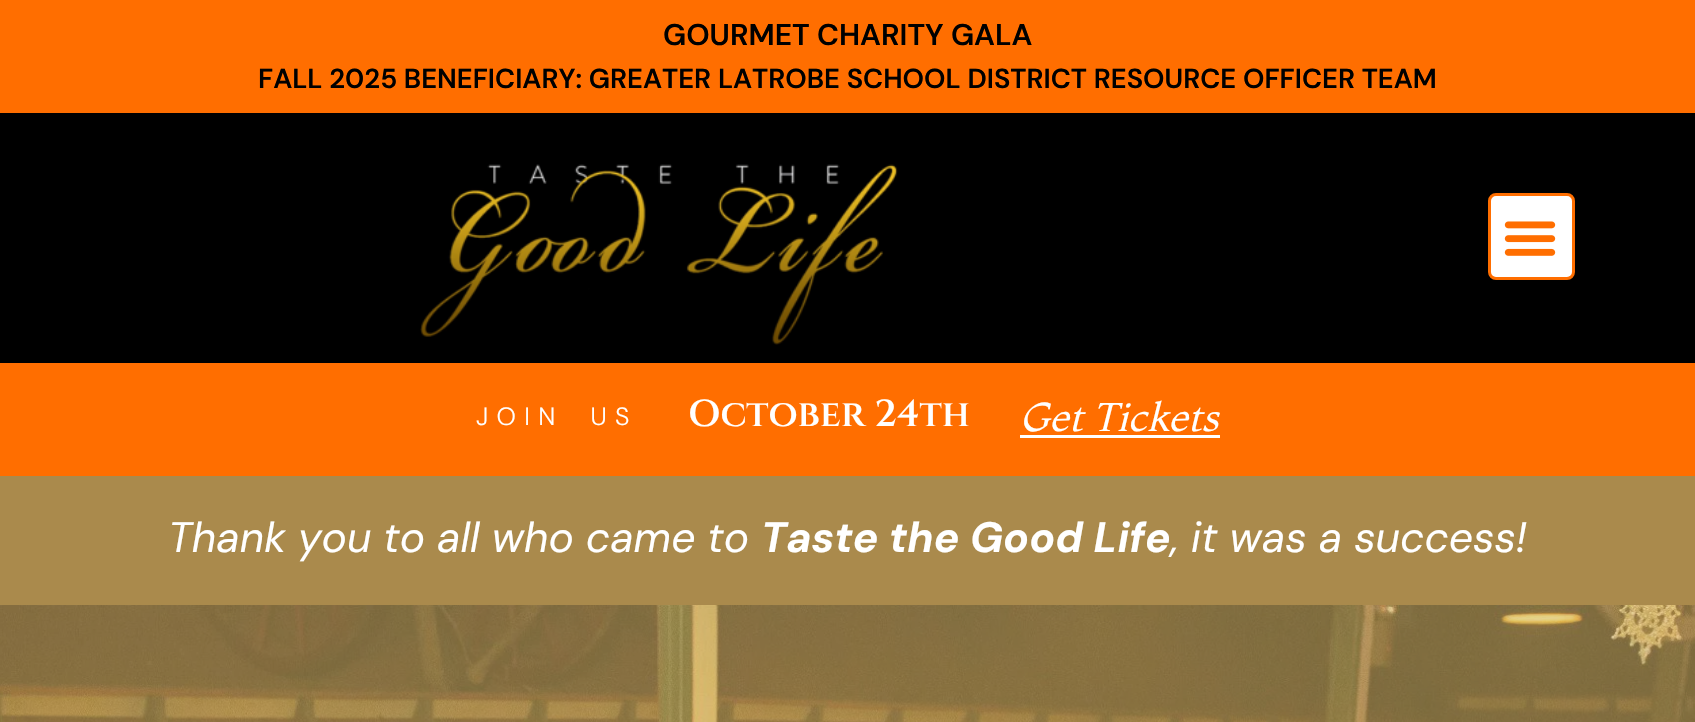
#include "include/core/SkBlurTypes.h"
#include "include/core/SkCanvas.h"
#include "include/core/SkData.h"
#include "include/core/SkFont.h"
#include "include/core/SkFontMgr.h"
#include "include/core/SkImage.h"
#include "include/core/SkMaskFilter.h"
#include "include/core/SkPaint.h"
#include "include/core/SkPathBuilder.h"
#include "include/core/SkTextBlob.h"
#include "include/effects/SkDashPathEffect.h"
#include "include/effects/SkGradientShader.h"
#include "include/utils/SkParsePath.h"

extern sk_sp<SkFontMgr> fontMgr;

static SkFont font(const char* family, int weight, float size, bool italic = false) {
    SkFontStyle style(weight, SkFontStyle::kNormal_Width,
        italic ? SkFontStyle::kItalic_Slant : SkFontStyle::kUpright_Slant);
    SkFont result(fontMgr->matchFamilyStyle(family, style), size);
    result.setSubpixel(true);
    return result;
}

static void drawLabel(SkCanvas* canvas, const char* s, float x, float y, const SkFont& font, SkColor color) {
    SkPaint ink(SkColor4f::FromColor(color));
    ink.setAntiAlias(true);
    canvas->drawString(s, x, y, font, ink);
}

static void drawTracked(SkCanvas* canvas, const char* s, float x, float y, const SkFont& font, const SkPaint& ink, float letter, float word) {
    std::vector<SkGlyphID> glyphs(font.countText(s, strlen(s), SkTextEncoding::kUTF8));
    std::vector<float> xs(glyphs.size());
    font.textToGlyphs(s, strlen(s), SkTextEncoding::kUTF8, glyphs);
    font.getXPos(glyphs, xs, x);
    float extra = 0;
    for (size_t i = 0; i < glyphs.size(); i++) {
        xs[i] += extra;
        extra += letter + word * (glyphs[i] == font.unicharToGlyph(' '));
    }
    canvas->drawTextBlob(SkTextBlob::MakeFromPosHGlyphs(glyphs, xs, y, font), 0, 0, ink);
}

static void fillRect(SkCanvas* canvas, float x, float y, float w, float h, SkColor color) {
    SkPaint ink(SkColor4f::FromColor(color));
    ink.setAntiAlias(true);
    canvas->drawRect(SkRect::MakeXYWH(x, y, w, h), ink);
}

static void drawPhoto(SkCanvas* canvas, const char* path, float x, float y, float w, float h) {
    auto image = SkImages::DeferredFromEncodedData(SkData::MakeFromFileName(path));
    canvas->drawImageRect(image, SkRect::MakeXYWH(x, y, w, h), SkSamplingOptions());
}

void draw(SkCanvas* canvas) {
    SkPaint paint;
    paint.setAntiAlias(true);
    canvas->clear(0xFFFF6E00);
    SkFont font1 = font("DM Sans", 600, 30);
    drawLabel(canvas, "GOURMET CHARITY GALA", 663, 45, font1, 0xFF000000);
    SkFont font2 = font("DM Sans", 600, 27.5f);
    drawLabel(canvas, "FALL 2025 BENEFICIARY: GREATER LATROBE SCHOOL DISTRICT RESOURCE OFFICER TEAM", 258, 88, font2, 0xFF000000);
    fillRect(canvas, 0, 113, 1695, 250, 0xFF000000);
    drawPhoto(canvas, "assets/img1.png", 420, 164, 478, 181);
    paint.setColor(0xFFFFFFFF);
    canvas->drawRoundRect(SkRect::MakeXYWH(1489.5f, 194.5f, 84, 84), 6.5f, 6.5f, paint);
    paint.setStroke(true);
    paint.setStrokeWidth(3);
    paint.setColor(0xFFFF6E00);
    canvas->drawRoundRect(SkRect::MakeXYWH(1489.5f, 194.5f, 84, 84), 6.5f, 6.5f, paint);
    drawPhoto(canvas, "assets/img2.png", 1504, 221, 52, 35);
    SkFont font3 = font("DM Sans", 300, 25);
    paint.setStroke(false);
    paint.setColor(0xFFFFFFFF);
    drawTracked(canvas, "JOIN US", 476, 425, font3, paint, 8.25f, 12);
    SkFont font4 = font("Cinzel", 600, 37.5f);
    drawLabel(canvas, "October 24th", 688, 426, font4, 0xFFFFFFFF);
    SkFont font5 = font("Montaga", 400, 40, true);
    drawLabel(canvas, "Get Tickets", 1020, 431, font5, 0xFFFFFFFF);
    fillRect(canvas, 1020, 435, 200, 3, 0xFFFFFFFF);
    fillRect(canvas, 0, 476, 1695, 129, 0xFFAA8A4C);
    SkFont font6 = font("DM Sans", 400, 42.5f, true);
    drawLabel(canvas, "Thank you to all who came to", 168, 552, font6, 0xFFFFFFFF);
    SkFont font7 = font("DM Sans", 700, 42.5f, true);
    drawLabel(canvas, "Taste the Good Life", 761, 552, font7, 0xFFFFFFFF);
    drawLabel(canvas, ", it was a success!", 1171, 552, font6, 0xFFFFFFFF);
    drawPhoto(canvas, "assets/img3.png", 0, 605, 1695, 117);
}
